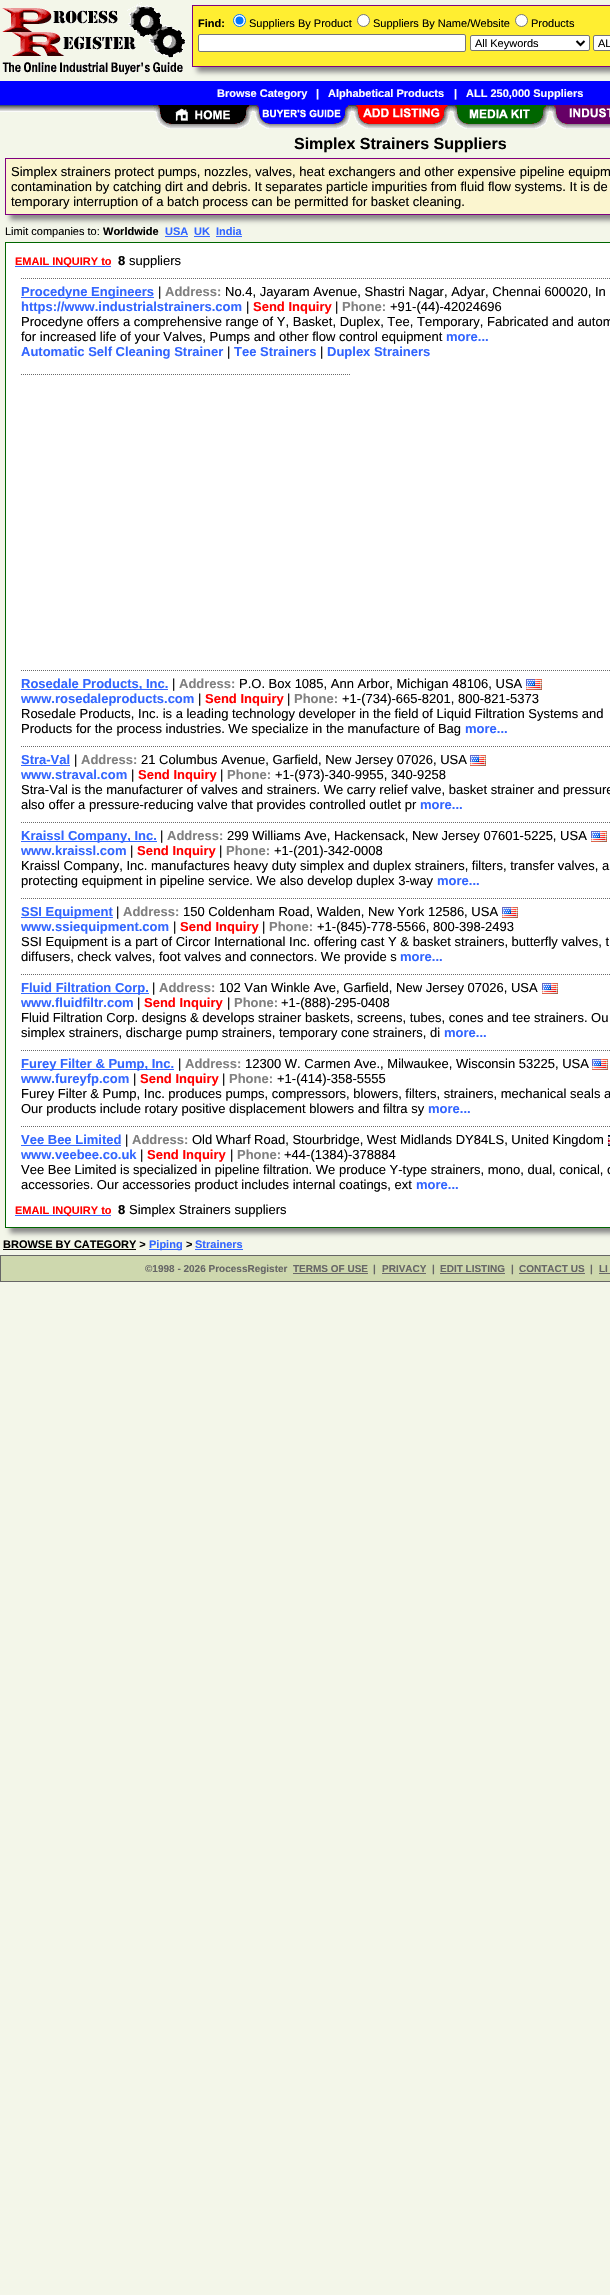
#include "include/core/SkBlurTypes.h"
#include "include/core/SkCanvas.h"
#include "include/core/SkData.h"
#include "include/core/SkFont.h"
#include "include/core/SkFontMgr.h"
#include "include/core/SkImage.h"
#include "include/core/SkMaskFilter.h"
#include "include/core/SkPaint.h"
#include "include/core/SkPathBuilder.h"
#include "include/core/SkTextBlob.h"
#include "include/effects/SkDashPathEffect.h"
#include "include/effects/SkGradientShader.h"
#include "include/utils/SkParsePath.h"

extern sk_sp<SkFontMgr> fontMgr;

static SkFont font(const char* family, int weight, float size, bool italic = false) {
    SkFontStyle style(weight, SkFontStyle::kNormal_Width,
        italic ? SkFontStyle::kItalic_Slant : SkFontStyle::kUpright_Slant);
    SkFont result(fontMgr->matchFamilyStyle(family, style), size);
    result.setSubpixel(true);
    return result;
}

static void drawLabel(SkCanvas* canvas, const char* s, float x, float y, const SkFont& font, SkColor color) {
    SkPaint ink(SkColor4f::FromColor(color));
    ink.setAntiAlias(true);
    canvas->drawString(s, x, y, font, ink);
}

static void fillRect(SkCanvas* canvas, float x, float y, float w, float h, SkColor color) {
    SkPaint ink(SkColor4f::FromColor(color));
    ink.setAntiAlias(true);
    canvas->drawRect(SkRect::MakeXYWH(x, y, w, h), ink);
}

static void drawPhoto(SkCanvas* canvas, const char* path, float x, float y, float w, float h) {
    auto image = SkImages::DeferredFromEncodedData(SkData::MakeFromFileName(path));
    canvas->drawImageRect(image, SkRect::MakeXYWH(x, y, w, h), SkSamplingOptions());
}

static SkPath parsePath(const char* data, bool evenOdd = false) {
    SkPath result = *SkParsePath::FromSVGString(data);
    if (evenOdd) result.setFillType(SkPathFillType::kEvenOdd);
    return result;
}

void draw(SkCanvas* canvas) {
    SkPaint paint;
    paint.setAntiAlias(true);
    canvas->clear(0xFFF3F6E9);
    drawPhoto(canvas, "assets/img1.png", 2, 2, 184, 73);
    paint.setColor(0xFF888888);
    paint.setMaskFilter(SkMaskFilter::MakeBlur(kNormal_SkBlurStyle, 2.5f));
    canvas->drawRect(SkRect::MakeXYWH(197, 10, 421, 62), paint);
    paint.setMaskFilter(nullptr);
    paint.setColor(0xFFFFEE31);
    canvas->drawRect(SkRect::MakeXYWH(192.5f, 5.5f, 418, 61), paint);
    paint.setStroke(true);
    paint.setStrokeWidth(1);
    paint.setColor(0xFF800080);
    canvas->drawRect(SkRect::MakeXYWH(192.5f, 5.5f, 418, 61), paint);
    SkFont font1 = font("Liberation Sans", 700, 11);
    drawLabel(canvas, "Find:", 198, 27, font1, 0xFF000000);
    paint.setStroke(false);
    paint.setColor(0xFFFFFFFF);
    canvas->drawCircle(239.5f, 20.5f, 6, paint);
    paint.setStroke(true);
    paint.setColor(0xFF0075FF);
    canvas->drawCircle(239.5f, 20.5f, 6, paint);
    paint.setStroke(false);
    canvas->drawCircle(239.5f, 20.5f, 4, paint);
    SkFont font2 = font("Liberation Sans", 400, 11);
    drawLabel(canvas, "Suppliers By Product", 249, 27, font2, 0xFF000000);
    paint.setColor(0xFFFFFFFF);
    canvas->drawCircle(363.5f, 20.5f, 6, paint);
    paint.setStroke(true);
    paint.setColor(0xFF767676);
    canvas->drawCircle(363.5f, 20.5f, 6, paint);
    drawLabel(canvas, "Suppliers By Name/Website", 373, 27, font2, 0xFF000000);
    paint.setStroke(false);
    paint.setColor(0xFFFFFFFF);
    canvas->drawCircle(521.5f, 20.5f, 6, paint);
    paint.setStroke(true);
    paint.setColor(0xFF767676);
    canvas->drawCircle(521.5f, 20.5f, 6, paint);
    drawLabel(canvas, "Products", 531, 27, font2, 0xFF000000);
    paint.setStroke(false);
    paint.setColor(0xFFFFFFFF);
    canvas->drawRoundRect(SkRect::MakeXYWH(198.5f, 34.5f, 267, 17), 1.5f, 1.5f, paint);
    paint.setStroke(true);
    paint.setColor(0xFF767676);
    canvas->drawRoundRect(SkRect::MakeXYWH(198.5f, 34.5f, 267, 17), 1.5f, 1.5f, paint);
    paint.setStroke(false);
    paint.setColor(0xFFFFFFFF);
    canvas->drawRoundRect(SkRect::MakeXYWH(470.5f, 35.5f, 119, 15), 1.5f, 1.5f, paint);
    paint.setStroke(true);
    paint.setColor(0xFF767676);
    canvas->drawRoundRect(SkRect::MakeXYWH(470.5f, 35.5f, 119, 15), 1.5f, 1.5f, paint);
    paint.setStrokeWidth(2);
    paint.setColor(0xFF000000);
    canvas->drawPath(parsePath("M576.5 41L580.5 45L584.5 41"), paint);
    drawLabel(canvas, "All Keywords", 475, 47, font2, 0xFF000000);
    paint.setStroke(false);
    paint.setColor(0xFFFFFFFF);
    canvas->drawRoundRect(SkRect::MakeXYWH(593.5f, 35.5f, 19, 15), 1.5f, 1.5f, paint);
    paint.setStroke(true);
    paint.setStrokeWidth(1);
    paint.setColor(0xFF767676);
    canvas->drawRoundRect(SkRect::MakeXYWH(593.5f, 35.5f, 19, 15), 1.5f, 1.5f, paint);
    drawLabel(canvas, "AL", 598, 47, font2, 0xFF000000);
    fillRect(canvas, 0, 81, 610, 24, 0xFF0000FF);
    drawLabel(canvas, "Browse Category", 217, 97, font1, 0xFFFFFFFF);
    drawLabel(canvas, "|", 316, 97, font1, 0xFFFFFFFF);
    drawLabel(canvas, "Alphabetical Products", 328, 97, font1, 0xFFFFFFFF);
    drawLabel(canvas, "|", 454, 97, font1, 0xFFFFFFFF);
    drawLabel(canvas, "ALL 250,000 Suppliers", 466, 97, font1, 0xFFFFFFFF);
    drawPhoto(canvas, "assets/img2.png", 0, 105, 153, 7);
    drawPhoto(canvas, "assets/img3.png", 153, 105, 99, 24);
    drawPhoto(canvas, "assets/img4.png", 252, 105, 99, 24);
    drawPhoto(canvas, "assets/img5.png", 351, 105, 99, 24);
    drawPhoto(canvas, "assets/img6.png", 450, 105, 99, 24);
    drawPhoto(canvas, "assets/img7.png", 549, 105, 61, 24);
    SkFont font3 = font("Liberation Sans", 700, 16);
    drawLabel(canvas, "Simplex Strainers Suppliers", 294, 149, font3, 0xFF000000);
    paint.setStroke(false);
    paint.setColor(0xFF888888);
    paint.setMaskFilter(SkMaskFilter::MakeBlur(kNormal_SkBlurStyle, 2.5f));
    canvas->drawRect(SkRect::MakeXYWH(10, 163, 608, 57), paint);
    paint.setMaskFilter(nullptr);
    paint.setColor(0xFFFBF5CF);
    canvas->drawRect(SkRect::MakeXYWH(5.5f, 158.5f, 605, 56), paint);
    paint.setStroke(true);
    paint.setColor(0xFF800080);
    canvas->drawRect(SkRect::MakeXYWH(5.5f, 158.5f, 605, 56), paint);
    SkFont font4 = font("Liberation Sans", 400, 13);
    drawLabel(canvas, "Simplex strainers protect pumps, nozzles, valves, heat exchangers and other expensive pipeline equipm", 11, 176, font4, 0xFF000000);
    drawLabel(canvas, "contamination by catching dirt and debris. It separates particle impurities from fluid flow systems. It is de", 11, 191, font4, 0xFF000000);
    drawLabel(canvas, "temporary interruption of a batch process can be permitted for basket cleaning.", 11, 206, font4, 0xFF000000);
    drawLabel(canvas, "Limit companies to:", 5, 235, font2, 0xFF000000);
    drawLabel(canvas, "Worldwide", 103, 235, font1, 0xFF000000);
    drawLabel(canvas, "USA", 165, 235, font1, 0xFF3366FF);
    fillRect(canvas, 165, 236, 23, 1, 0xFF3366FF);
    drawLabel(canvas, "UK", 194, 235, font1, 0xFF3366FF);
    fillRect(canvas, 194, 236, 16, 1, 0xFF3366FF);
    drawLabel(canvas, "India", 216, 235, font1, 0xFF3366FF);
    fillRect(canvas, 216, 236, 26, 1, 0xFF3366FF);
    paint.setStroke(false);
    paint.setColor(0xFF888888);
    paint.setMaskFilter(SkMaskFilter::MakeBlur(kNormal_SkBlurStyle, 2.5f));
    canvas->drawRect(SkRect::MakeXYWH(10, 247, 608, 986), paint);
    paint.setMaskFilter(nullptr);
    paint.setColor(0xFFFFFFFF);
    canvas->drawRect(SkRect::MakeXYWH(5.5f, 242.5f, 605, 985), paint);
    paint.setStroke(true);
    paint.setColor(0xFF006600);
    canvas->drawRect(SkRect::MakeXYWH(5.5f, 242.5f, 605, 985), paint);
    fillRect(canvas, 15, 266, 96, 1, 0xFF3366FF);
    drawLabel(canvas, "EMAIL INQUIRY to", 15, 265, font1, 0xFFFF0000);
    SkFont font5 = font("Liberation Sans", 700, 13);
    drawLabel(canvas, "8", 118, 265, font5, 0xFF000000);
    drawLabel(canvas, "suppliers", 129, 265, font4, 0xFF000000);
    paint.setColor(0xFF696969);
    paint.setPathEffect(SkDashPathEffect::Make({{1, 1}}, 0));
    canvas->drawPath(parsePath("M21 278.5H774"), paint);
    paint.setPathEffect(nullptr);
    fillRect(canvas, 21, 297, 133, 1, 0xFF3366FF);
    drawLabel(canvas, "Procedyne Engineers", 21, 296, font5, 0xFF3366FF);
    drawLabel(canvas, "|", 158, 296, font4, 0xFF000000);
    drawLabel(canvas, "Address:", 165, 296, font5, 0xFF808080);
    drawLabel(canvas, "No.4, Jayaram Avenue, Shastri Nagar, Adyar, Chennai 600020, In", 225, 296, font4, 0xFF000000);
    drawLabel(canvas, "https://www.industrialstrainers.com", 21, 311, font5, 0xFF3366FF);
    drawLabel(canvas, "|", 246, 311, font4, 0xFF000000);
    drawLabel(canvas, "Send Inquiry", 253, 311, font5, 0xFFFF0000);
    drawLabel(canvas, "|", 335, 311, font4, 0xFF000000);
    drawLabel(canvas, "Phone:", 342, 311, font5, 0xFF808080);
    drawLabel(canvas, "+91-(44)-42024696", 390, 311, font4, 0xFF000000);
    drawLabel(canvas, "Procedyne offers a comprehensive range of Y, Basket, Duplex, Tee, Temporary, Fabricated and autom", 21, 326, font4, 0xFF000000);
    drawLabel(canvas, "for increased life of your Valves, Pumps and other flow control equipment", 21, 341, font4, 0xFF000000);
    drawLabel(canvas, "more...", 446, 341, font5, 0xFF3366FF);
    drawLabel(canvas, "Automatic Self Cleaning Strainer", 21, 356, font5, 0xFF3366FF);
    drawLabel(canvas, "|", 227, 356, font4, 0xFF000000);
    drawLabel(canvas, "Tee Strainers", 234, 356, font5, 0xFF3366FF);
    drawLabel(canvas, "|", 320, 356, font4, 0xFF000000);
    drawLabel(canvas, "Duplex Strainers", 327, 356, font5, 0xFF3366FF);
    paint.setPathEffect(SkDashPathEffect::Make({{1, 1}}, 0));
    canvas->drawPath(parsePath("M21 374.5H351"), paint);
    paint.setPathEffect(nullptr);
    paint.setPathEffect(SkDashPathEffect::Make({{1, 1}}, 0));
    canvas->drawPath(parsePath("M21 670.5H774"), paint);
    paint.setPathEffect(nullptr);
    fillRect(canvas, 21, 689, 147, 1, 0xFF3366FF);
    drawLabel(canvas, "Rosedale Products, Inc.", 21, 688, font5, 0xFF3366FF);
    drawLabel(canvas, "|", 172, 688, font4, 0xFF000000);
    drawLabel(canvas, "Address:", 179, 688, font5, 0xFF808080);
    drawLabel(canvas, "P.O. Box 1085, Ann Arbor, Michigan 48106, USA", 239, 688, font4, 0xFF000000);
    drawPhoto(canvas, "assets/img8.png", 526, 679, 16, 11);
    drawLabel(canvas, "www.rosedaleproducts.com", 21, 703, font5, 0xFF3366FF);
    drawLabel(canvas, "|", 198, 703, font4, 0xFF000000);
    drawLabel(canvas, "Send Inquiry", 205, 703, font5, 0xFFFF0000);
    drawLabel(canvas, "|", 287, 703, font4, 0xFF000000);
    drawLabel(canvas, "Phone:", 294, 703, font5, 0xFF808080);
    drawLabel(canvas, "+1-(734)-665-8201, 800-821-5373", 342, 703, font4, 0xFF000000);
    drawLabel(canvas, "Rosedale Products, Inc. is a leading technology developer in the field of Liquid Filtration Systems and", 21, 718, font4, 0xFF000000);
    drawLabel(canvas, "Products for the process industries. We specialize in the manufacture of Bag", 21, 733, font4, 0xFF000000);
    drawLabel(canvas, "more...", 465, 733, font5, 0xFF3366FF);
    paint.setPathEffect(SkDashPathEffect::Make({{1, 1}}, 0));
    canvas->drawPath(parsePath("M21 746.5H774"), paint);
    paint.setPathEffect(nullptr);
    drawLabel(canvas, "Stra-Val", 21, 764, font5, 0xFF3366FF);
    fillRect(canvas, 21, 765, 49, 1, 0xFF3366FF);
    drawLabel(canvas, "|", 74, 764, font4, 0xFF000000);
    drawLabel(canvas, "Address:", 81, 764, font5, 0xFF808080);
    drawLabel(canvas, "21 Columbus Avenue, Garfield, New Jersey 07026, USA", 141, 764, font4, 0xFF000000);
    drawPhoto(canvas, "assets/img8.png", 470, 755, 16, 11);
    drawLabel(canvas, "www.straval.com", 21, 779, font5, 0xFF3366FF);
    drawLabel(canvas, "|", 131, 779, font4, 0xFF000000);
    drawLabel(canvas, "Send Inquiry", 138, 779, font5, 0xFFFF0000);
    drawLabel(canvas, "|", 220, 779, font4, 0xFF000000);
    drawLabel(canvas, "Phone:", 227, 779, font5, 0xFF808080);
    drawLabel(canvas, "+1-(973)-340-9955, 340-9258", 275, 779, font4, 0xFF000000);
    drawLabel(canvas, "Stra-Val is the manufacturer of valves and strainers. We carry relief valve, basket strainer and pressure", 21, 794, font4, 0xFF000000);
    drawLabel(canvas, "also offer a pressure-reducing valve that provides controlled outlet pr", 21, 809, font4, 0xFF000000);
    drawLabel(canvas, "more...", 420, 809, font5, 0xFF3366FF);
    paint.setPathEffect(SkDashPathEffect::Make({{1, 1}}, 0));
    canvas->drawPath(parsePath("M21 822.5H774"), paint);
    paint.setPathEffect(nullptr);
    fillRect(canvas, 21, 841, 136, 1, 0xFF3366FF);
    drawLabel(canvas, "Kraissl Company, Inc.", 21, 840, font5, 0xFF3366FF);
    drawLabel(canvas, "|", 160, 840, font4, 0xFF000000);
    drawLabel(canvas, "Address:", 167, 840, font5, 0xFF808080);
    drawLabel(canvas, "299 Williams Ave, Hackensack, New Jersey 07601-5225, USA", 227, 840, font4, 0xFF000000);
    drawPhoto(canvas, "assets/img8.png", 591, 831, 16, 11);
    drawLabel(canvas, "www.kraissl.com", 21, 855, font5, 0xFF3366FF);
    drawLabel(canvas, "|", 130, 855, font4, 0xFF000000);
    drawLabel(canvas, "Send Inquiry", 137, 855, font5, 0xFFFF0000);
    drawLabel(canvas, "|", 219, 855, font4, 0xFF000000);
    drawLabel(canvas, "Phone:", 226, 855, font5, 0xFF808080);
    drawLabel(canvas, "+1-(201)-342-0008", 274, 855, font4, 0xFF000000);
    drawLabel(canvas, "Kraissl Company, Inc. manufactures heavy duty simplex and duplex strainers, filters, transfer valves, a", 21, 870, font4, 0xFF000000);
    drawLabel(canvas, "protecting equipment in pipeline service. We also develop duplex 3-way", 21, 885, font4, 0xFF000000);
    drawLabel(canvas, "more...", 437, 885, font5, 0xFF3366FF);
    paint.setPathEffect(SkDashPathEffect::Make({{1, 1}}, 0));
    canvas->drawPath(parsePath("M21 898.5H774"), paint);
    paint.setPathEffect(nullptr);
    fillRect(canvas, 21, 917, 92, 1, 0xFF3366FF);
    drawLabel(canvas, "SSI Equipment", 21, 916, font5, 0xFF3366FF);
    drawLabel(canvas, "|", 116, 916, font4, 0xFF000000);
    drawLabel(canvas, "Address:", 123, 916, font5, 0xFF808080);
    drawLabel(canvas, "150 Coldenham Road, Walden, New York 12586, USA", 183, 916, font4, 0xFF000000);
    drawPhoto(canvas, "assets/img8.png", 502, 907, 16, 11);
    drawLabel(canvas, "www.ssiequipment.com", 21, 931, font5, 0xFF3366FF);
    drawLabel(canvas, "|", 173, 931, font4, 0xFF000000);
    drawLabel(canvas, "Send Inquiry", 180, 931, font5, 0xFFFF0000);
    drawLabel(canvas, "|", 262, 931, font4, 0xFF000000);
    drawLabel(canvas, "Phone:", 269, 931, font5, 0xFF808080);
    drawLabel(canvas, "+1-(845)-778-5566, 800-398-2493", 317, 931, font4, 0xFF000000);
    drawLabel(canvas, "SSI Equipment is a part of Circor International Inc. offering cast Y & basket strainers, butterfly valves, t", 21, 946, font4, 0xFF000000);
    drawLabel(canvas, "diffusers, check valves, foot valves and connectors. We provide s", 21, 961, font4, 0xFF000000);
    drawLabel(canvas, "more...", 400, 961, font5, 0xFF3366FF);
    paint.setPathEffect(SkDashPathEffect::Make({{1, 1}}, 0));
    canvas->drawPath(parsePath("M21 974.5H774"), paint);
    paint.setPathEffect(nullptr);
    fillRect(canvas, 21, 993, 128, 1, 0xFF3366FF);
    drawLabel(canvas, "Fluid Filtration Corp.", 21, 992, font5, 0xFF3366FF);
    drawLabel(canvas, "|", 152, 992, font4, 0xFF000000);
    drawLabel(canvas, "Address:", 159, 992, font5, 0xFF808080);
    drawLabel(canvas, "102 Van Winkle Ave, Garfield, New Jersey 07026, USA", 219, 992, font4, 0xFF000000);
    drawPhoto(canvas, "assets/img8.png", 542, 983, 16, 11);
    drawLabel(canvas, "www.fluidfiltr.com", 21, 1007, font5, 0xFF3366FF);
    drawLabel(canvas, "|", 137, 1007, font4, 0xFF000000);
    drawLabel(canvas, "Send Inquiry", 144, 1007, font5, 0xFFFF0000);
    drawLabel(canvas, "|", 227, 1007, font4, 0xFF000000);
    drawLabel(canvas, "Phone:", 234, 1007, font5, 0xFF808080);
    drawLabel(canvas, "+1-(888)-295-0408", 281, 1007, font4, 0xFF000000);
    drawLabel(canvas, "Fluid Filtration Corp. designs & develops strainer baskets, screens, tubes, cones and tee strainers. Ou", 21, 1022, font4, 0xFF000000);
    drawLabel(canvas, "simplex strainers, discharge pump strainers, temporary cone strainers, di", 21, 1037, font4, 0xFF000000);
    drawLabel(canvas, "more...", 444, 1037, font5, 0xFF3366FF);
    paint.setPathEffect(SkDashPathEffect::Make({{1, 1}}, 0));
    canvas->drawPath(parsePath("M21 1050.5H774"), paint);
    paint.setPathEffect(nullptr);
    fillRect(canvas, 21, 1069, 153, 1, 0xFF3366FF);
    drawLabel(canvas, "Furey Filter & Pump, Inc.", 21, 1068, font5, 0xFF3366FF);
    drawLabel(canvas, "|", 178, 1068, font4, 0xFF000000);
    drawLabel(canvas, "Address:", 185, 1068, font5, 0xFF808080);
    drawLabel(canvas, "12300 W. Carmen Ave., Milwaukee, Wisconsin 53225, USA", 245, 1068, font4, 0xFF000000);
    drawPhoto(canvas, "assets/img8.png", 592, 1059, 16, 11);
    drawLabel(canvas, "www.fureyfp.com", 21, 1083, font5, 0xFF3366FF);
    drawLabel(canvas, "|", 133, 1083, font4, 0xFF000000);
    drawLabel(canvas, "Send Inquiry", 140, 1083, font5, 0xFFFF0000);
    drawLabel(canvas, "|", 222, 1083, font4, 0xFF000000);
    drawLabel(canvas, "Phone:", 229, 1083, font5, 0xFF808080);
    drawLabel(canvas, "+1-(414)-358-5555", 277, 1083, font4, 0xFF000000);
    drawLabel(canvas, "Furey Filter & Pump, Inc. produces pumps, compressors, blowers, filters, strainers, mechanical seals a", 21, 1098, font4, 0xFF000000);
    drawLabel(canvas, "Our products include rotary positive displacement blowers and filtra sy", 21, 1113, font4, 0xFF000000);
    drawLabel(canvas, "more...", 428, 1113, font5, 0xFF3366FF);
    paint.setPathEffect(SkDashPathEffect::Make({{1, 1}}, 0));
    canvas->drawPath(parsePath("M21 1126.5H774"), paint);
    paint.setPathEffect(nullptr);
    drawLabel(canvas, "Vee Bee Limited", 21, 1144, font5, 0xFF3366FF);
    fillRect(canvas, 21, 1145, 100, 1, 0xFF3366FF);
    drawLabel(canvas, "|", 125, 1144, font4, 0xFF000000);
    drawLabel(canvas, "Address:", 132, 1144, font5, 0xFF808080);
    drawLabel(canvas, "Old Wharf Road, Stourbridge, West Midlands DY84LS, United Kingdom", 192, 1144, font4, 0xFF000000);
    drawPhoto(canvas, "assets/img9.png", 608, 1135, 2, 11);
    drawLabel(canvas, "www.veebee.co.uk", 21, 1159, font5, 0xFF3366FF);
    drawLabel(canvas, "|", 140, 1159, font4, 0xFF000000);
    drawLabel(canvas, "Send Inquiry", 147, 1159, font5, 0xFFFF0000);
    drawLabel(canvas, "|", 230, 1159, font4, 0xFF000000);
    drawLabel(canvas, "Phone:", 237, 1159, font5, 0xFF808080);
    drawLabel(canvas, "+44-(1384)-378884", 284, 1159, font4, 0xFF000000);
    drawLabel(canvas, "Vee Bee Limited is specialized in pipeline filtration. We produce Y-type strainers, mono, dual, conical, c", 21, 1174, font4, 0xFF000000);
    drawLabel(canvas, "accessories. Our accessories product includes internal coatings, ext", 21, 1189, font4, 0xFF000000);
    drawLabel(canvas, "more...", 416, 1189, font5, 0xFF3366FF);
    fillRect(canvas, 15, 1215, 96, 1, 0xFF3366FF);
    drawLabel(canvas, "EMAIL INQUIRY to", 15, 1214, font1, 0xFFFF0000);
    drawLabel(canvas, "8", 118, 1214, font5, 0xFF000000);
    drawLabel(canvas, "Simplex Strainers suppliers", 129, 1214, font4, 0xFF000000);
    drawLabel(canvas, "BROWSE BY CATEGORY >", 3, 1248, font1, 0xFF000000);
    fillRect(canvas, 3, 1249, 133, 1, 0xFF000000);
    fillRect(canvas, 149, 1249, 33, 1, 0xFF3366FF);
    drawLabel(canvas, "Piping", 149, 1248, font1, 0xFF3366FF);
    drawLabel(canvas, ">", 186, 1248, font1, 0xFF000000);
    drawLabel(canvas, "Strainers", 195, 1248, font1, 0xFF3366FF);
    fillRect(canvas, 195, 1249, 48, 1, 0xFF3366FF);
    paint.setStroke(false);
    paint.setColor(0xFFCED8AE);
    canvas->drawRect(SkRect::MakeXYWH(0.5f, 1255.5f, 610, 26), paint);
    paint.setStroke(true);
    paint.setColor(0xFF666666);
    canvas->drawRect(SkRect::MakeXYWH(0.5f, 1255.5f, 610, 26), paint);
    SkFont font6 = font("Liberation Sans", 700, 10);
    drawLabel(canvas, "©1998 - 2026 ProcessRegister", 145, 1272, font6, 0xFF666666);
    drawLabel(canvas, "TERMS OF USE", 293, 1272, font6, 0xFF666666);
    fillRect(canvas, 293, 1273, 75, 1, 0xFF666666);
    drawLabel(canvas, "|", 373, 1272, font6, 0xFF666666);
    drawLabel(canvas, "PRIVACY", 382, 1272, font6, 0xFF666666);
    fillRect(canvas, 382, 1273, 44, 1, 0xFF666666);
    drawLabel(canvas, "|", 432, 1272, font6, 0xFF666666);
    drawLabel(canvas, "EDIT LISTING", 440, 1272, font6, 0xFF666666);
    fillRect(canvas, 440, 1273, 65, 1, 0xFF666666);
    drawLabel(canvas, "|", 511, 1272, font6, 0xFF666666);
    drawLabel(canvas, "CONTACT US", 519, 1272, font6, 0xFF666666);
    fillRect(canvas, 519, 1273, 66, 1, 0xFF666666);
    drawLabel(canvas, "|", 590, 1272, font6, 0xFF666666);
    drawLabel(canvas, "LI", 599, 1272, font6, 0xFF666666);
    fillRect(canvas, 599, 1273, 11, 1, 0xFF666666);
}
